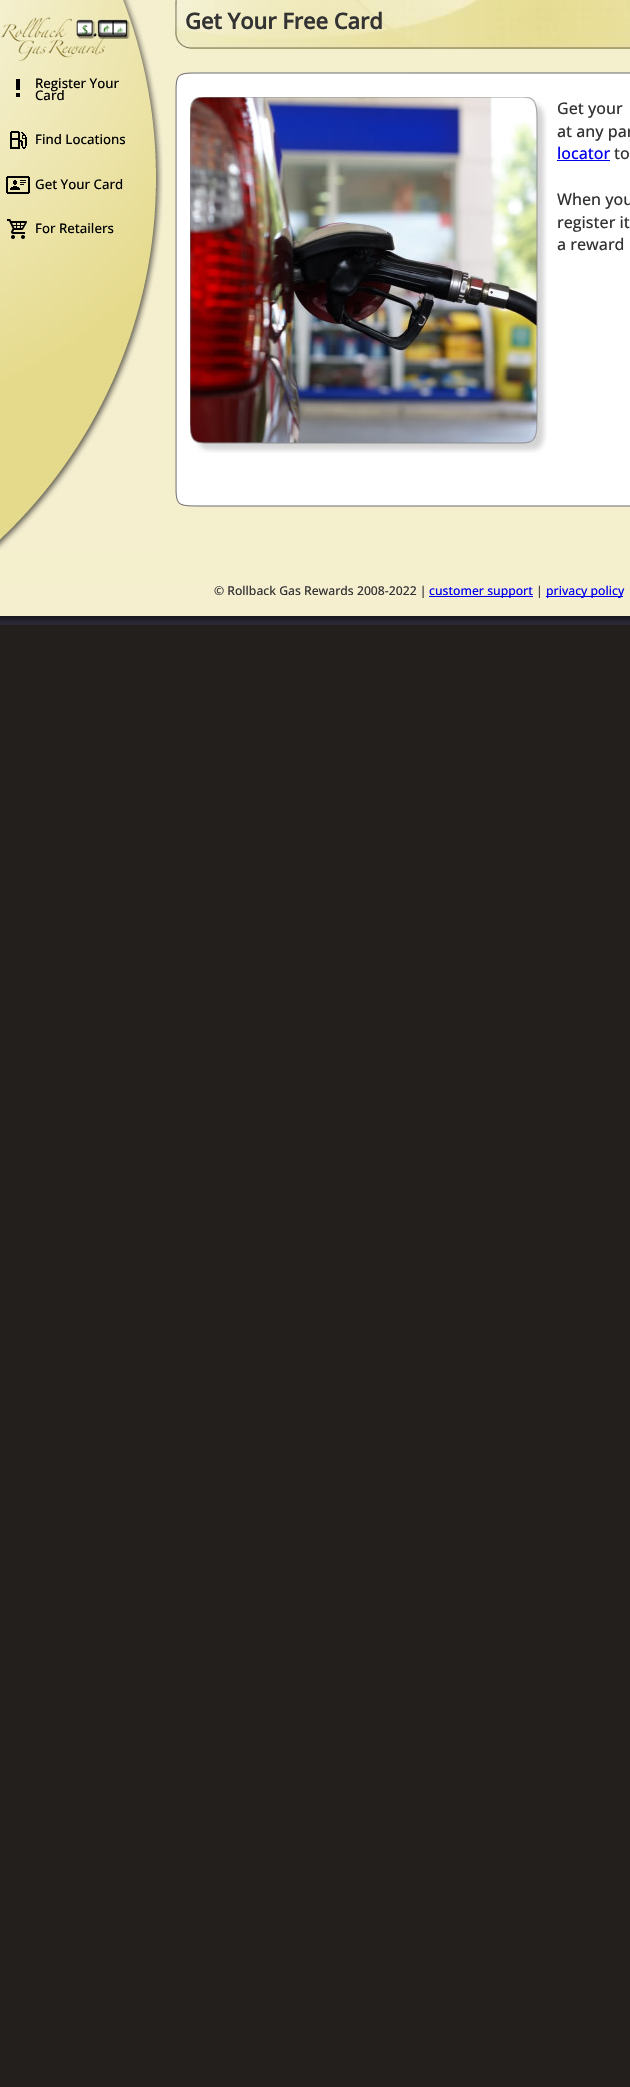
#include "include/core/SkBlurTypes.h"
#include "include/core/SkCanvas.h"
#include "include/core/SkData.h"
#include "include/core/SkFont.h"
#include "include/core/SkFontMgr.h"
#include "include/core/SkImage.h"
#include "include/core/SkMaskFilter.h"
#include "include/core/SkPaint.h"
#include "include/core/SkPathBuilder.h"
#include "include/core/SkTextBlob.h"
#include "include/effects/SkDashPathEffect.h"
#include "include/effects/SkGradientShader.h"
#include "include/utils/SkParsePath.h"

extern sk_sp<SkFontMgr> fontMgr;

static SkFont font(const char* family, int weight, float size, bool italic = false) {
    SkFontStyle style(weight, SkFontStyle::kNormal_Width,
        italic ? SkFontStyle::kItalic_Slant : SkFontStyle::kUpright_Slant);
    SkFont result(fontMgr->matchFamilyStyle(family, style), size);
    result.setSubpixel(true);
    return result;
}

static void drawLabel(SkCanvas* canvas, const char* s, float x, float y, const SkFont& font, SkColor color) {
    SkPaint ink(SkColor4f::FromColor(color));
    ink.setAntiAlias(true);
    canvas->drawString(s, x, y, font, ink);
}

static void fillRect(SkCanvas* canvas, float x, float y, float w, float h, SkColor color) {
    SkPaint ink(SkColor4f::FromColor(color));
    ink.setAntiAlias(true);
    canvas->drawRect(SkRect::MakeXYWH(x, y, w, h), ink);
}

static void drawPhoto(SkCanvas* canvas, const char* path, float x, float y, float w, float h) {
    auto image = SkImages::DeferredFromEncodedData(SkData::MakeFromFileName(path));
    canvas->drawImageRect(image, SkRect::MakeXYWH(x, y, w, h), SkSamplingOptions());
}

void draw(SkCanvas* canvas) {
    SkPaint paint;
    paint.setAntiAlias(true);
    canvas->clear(0xFF231F1D);
    fillRect(canvas, 0, 0, 630, 585, 0xFFF4F0CE);
    drawPhoto(canvas, "assets/img1.png", 0, 0, 163, 550);
    drawPhoto(canvas, "assets/img2.png", 175, 0, 455, 49);
    SkFont font1 = font("Open Sans", 700, 22);
    drawLabel(canvas, "Get Your Free Card", 185, 29, font1, 0xFF333333);
    drawPhoto(canvas, "assets/img3.png", 16, 79, 4, 18);
    SkFont font2 = font("Open Sans", 500, 13.25f);
    drawLabel(canvas, "Register Your", 35, 88, font2, 0xFF000000);
    drawLabel(canvas, "Card", 35, 100, font2, 0xFF000000);
    drawPhoto(canvas, "assets/img4.png", 10, 131, 17, 18);
    drawLabel(canvas, "Find Locations", 35, 144, font2, 0xFF000000);
    drawPhoto(canvas, "assets/img5.png", 6, 176, 24, 18);
    drawLabel(canvas, "Get Your Card", 35, 189, font2, 0xFF000000);
    drawPhoto(canvas, "assets/img6.png", 7, 219, 20, 20);
    drawLabel(canvas, "For Retailers", 35, 233, font2, 0xFF000000);
    drawPhoto(canvas, "assets/img7.png", 175, 72, 455, 17);
    drawPhoto(canvas, "assets/img8.png", 175, 89, 455, 403);
    drawPhoto(canvas, "assets/img9.png", 190, 97, 357, 356);
    SkFont font3 = font("Open Sans", 500, 16);
    drawLabel(canvas, "Get your", 557, 114, font3, 0xFF333333);
    drawLabel(canvas, "at any par", 557, 137, font3, 0xFF333333);
    drawLabel(canvas, "locator", 557, 159, font3, 0xFF0000EE);
    fillRect(canvas, 557, 160, 53, 1, 0xFF0000EE);
    drawLabel(canvas, "to", 614, 159, font3, 0xFF333333);
    drawLabel(canvas, "When you", 557, 205, font3, 0xFF333333);
    drawLabel(canvas, "register it", 557, 228, font3, 0xFF333333);
    drawLabel(canvas, "a reward", 557, 250, font3, 0xFF333333);
    drawPhoto(canvas, "assets/img10.png", 175, 492, 455, 15);
    fillRect(canvas, 0, 616, 630, 9, 0xFF2A2835);
    drawPhoto(canvas, "assets/img11.png", 0, 585, 630, 37);
    SkFont font4 = font("Open Sans", 500, 12.2f);
    drawLabel(canvas, "© Rollback Gas Rewards 2008-2022 |", 214, 595, font4, 0xFF333333);
    fillRect(canvas, 429, 596, 104, 1, 0xFF0000EE);
    drawLabel(canvas, "customer support", 429, 595, font4, 0xFF0000EE);
    drawLabel(canvas, "|", 536, 595, font4, 0xFF333333);
    fillRect(canvas, 546, 596, 77, 1, 0xFF0000EE);
    drawLabel(canvas, "privacy policy", 546, 595, font4, 0xFF0000EE);
}
